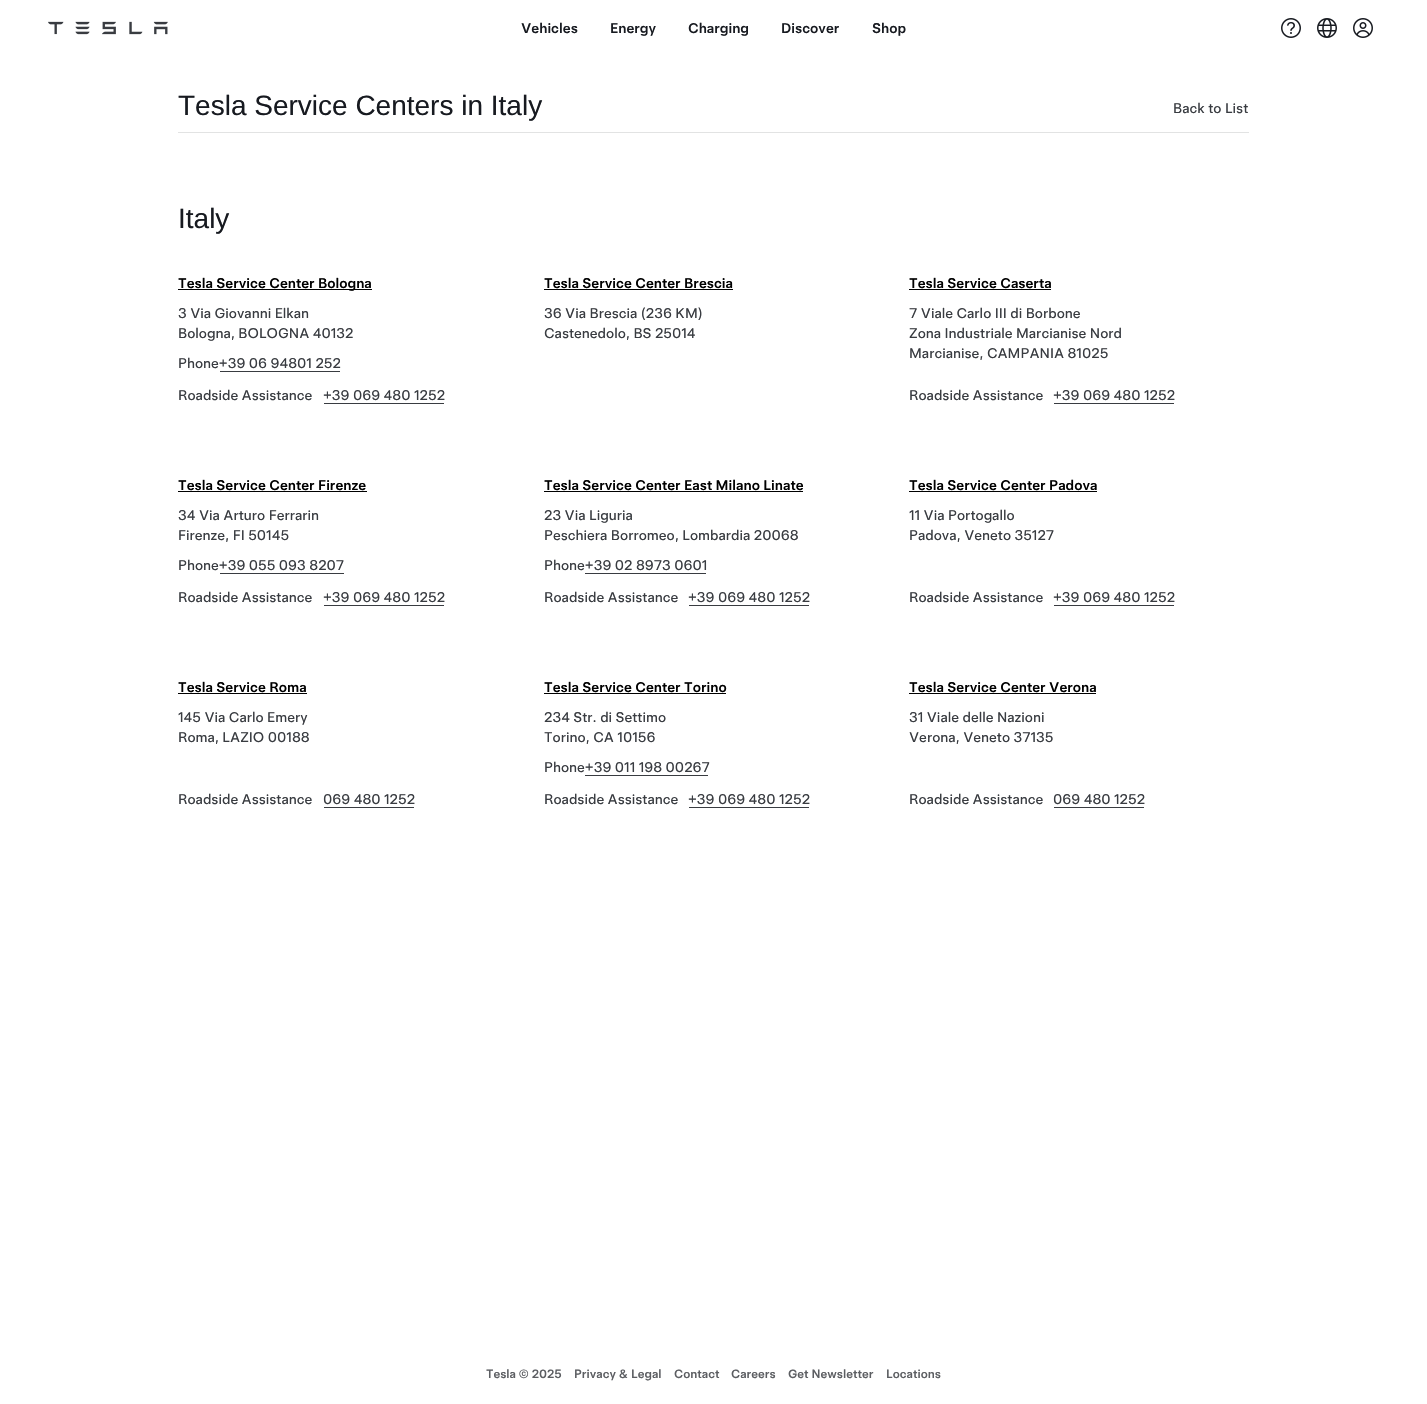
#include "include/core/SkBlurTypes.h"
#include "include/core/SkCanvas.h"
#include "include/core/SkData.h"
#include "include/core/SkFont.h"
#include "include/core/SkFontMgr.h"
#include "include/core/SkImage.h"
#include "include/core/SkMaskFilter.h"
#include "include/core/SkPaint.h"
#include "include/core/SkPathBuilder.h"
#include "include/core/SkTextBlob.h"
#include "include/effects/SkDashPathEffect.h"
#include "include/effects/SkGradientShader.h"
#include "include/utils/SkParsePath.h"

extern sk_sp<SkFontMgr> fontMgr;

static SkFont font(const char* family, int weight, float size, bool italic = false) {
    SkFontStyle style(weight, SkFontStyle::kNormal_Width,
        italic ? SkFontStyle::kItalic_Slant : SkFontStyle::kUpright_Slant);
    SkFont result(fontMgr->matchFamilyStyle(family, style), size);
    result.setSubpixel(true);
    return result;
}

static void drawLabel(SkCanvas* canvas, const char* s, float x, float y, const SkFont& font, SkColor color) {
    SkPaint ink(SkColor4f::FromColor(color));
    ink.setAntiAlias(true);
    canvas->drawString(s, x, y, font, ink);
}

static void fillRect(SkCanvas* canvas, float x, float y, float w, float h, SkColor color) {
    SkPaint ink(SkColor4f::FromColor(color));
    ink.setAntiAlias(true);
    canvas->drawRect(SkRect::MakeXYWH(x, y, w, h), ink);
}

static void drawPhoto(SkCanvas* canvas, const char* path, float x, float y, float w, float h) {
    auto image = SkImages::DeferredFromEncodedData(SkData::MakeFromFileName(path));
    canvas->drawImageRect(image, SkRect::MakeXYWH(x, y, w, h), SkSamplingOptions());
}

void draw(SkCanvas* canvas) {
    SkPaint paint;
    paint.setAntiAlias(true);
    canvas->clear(0xFFFFFFFF);
    drawPhoto(canvas, "assets/img1.png", 48, 21, 120, 14);
    SkFont font1 = font("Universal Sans", 500, 14);
    drawLabel(canvas, "Vehicles", 521, 33, font1, 0xFF171A20);
    drawLabel(canvas, "Energy", 610, 33, font1, 0xFF171A20);
    drawLabel(canvas, "Charging", 688, 33, font1, 0xFF171A20);
    drawLabel(canvas, "Discover", 781, 33, font1, 0xFF171A20);
    drawLabel(canvas, "Shop", 872, 33, font1, 0xFF171A20);
    drawPhoto(canvas, "assets/img2.png", 1281, 18, 20, 20);
    drawPhoto(canvas, "assets/img3.png", 1317, 18, 20, 20);
    drawPhoto(canvas, "assets/img4.png", 1353, 18, 20, 20);
    fillRect(canvas, 178, 132, 1071, 1, 0xFFE2E3E3);
    SkFont font2 = font("Liberation Sans", 400, 28);
    drawLabel(canvas, "Tesla Service Centers in Italy", 178, 115, font2, 0xFF171A20);
    SkFont font3 = font("Universal Sans", 400, 14);
    drawLabel(canvas, "Back to List", 1173, 113, font3, 0xFF393C41);
    drawLabel(canvas, "Italy", 178, 228, font2, 0xFF171A20);
    fillRect(canvas, 178, 289, 194, 1, 0xFF000000);
    drawLabel(canvas, "Tesla Service Center Bologna", 178, 288, font1, 0xFF000000);
    drawLabel(canvas, "3 Via Giovanni Elkan", 178, 318, font3, 0xFF393C41);
    drawLabel(canvas, "Bologna, BOLOGNA 40132", 178, 338, font3, 0xFF393C41);
    drawLabel(canvas, "Phone+39 06 94801 252", 178, 368, font3, 0xFF393C41);
    fillRect(canvas, 220, 371, 120, 1, 0xFF393C41);
    drawLabel(canvas, "Roadside Assistance", 178, 400, font3, 0xFF393C41);
    drawLabel(canvas, "+39 069 480 1252", 323, 400, font3, 0xFF393C41);
    fillRect(canvas, 324, 403, 120, 1, 0xFF393C41);
    drawLabel(canvas, "Tesla Service Center Brescia", 544, 288, font1, 0xFF000000);
    fillRect(canvas, 544, 289, 189, 1, 0xFF000000);
    drawLabel(canvas, "36 Via Brescia (236 KM)", 544, 318, font3, 0xFF393C41);
    drawLabel(canvas, "Castenedolo, BS 25014", 544, 338, font3, 0xFF393C41);
    drawLabel(canvas, "Tesla Service Caserta", 909, 288, font1, 0xFF000000);
    fillRect(canvas, 909, 289, 142, 1, 0xFF000000);
    drawLabel(canvas, "7 Viale Carlo III di Borbone", 909, 318, font3, 0xFF393C41);
    drawLabel(canvas, "Zona Industriale Marcianise Nord", 909, 338, font3, 0xFF393C41);
    drawLabel(canvas, "Marcianise, CAMPANIA 81025", 909, 358, font3, 0xFF393C41);
    drawLabel(canvas, "Roadside Assistance", 909, 400, font3, 0xFF393C41);
    drawLabel(canvas, "+39 069 480 1252", 1053, 400, font3, 0xFF393C41);
    fillRect(canvas, 1054, 403, 120, 1, 0xFF393C41);
    drawLabel(canvas, "Tesla Service Center Firenze", 178, 490, font1, 0xFF000000);
    fillRect(canvas, 178, 491, 189, 1, 0xFF000000);
    drawLabel(canvas, "34 Via Arturo Ferrarin", 178, 520, font3, 0xFF393C41);
    drawLabel(canvas, "Firenze, FI 50145", 178, 540, font3, 0xFF393C41);
    drawLabel(canvas, "Phone+39 055 093 8207", 178, 570, font3, 0xFF393C41);
    fillRect(canvas, 220, 573, 124, 1, 0xFF393C41);
    drawLabel(canvas, "Roadside Assistance", 178, 602, font3, 0xFF393C41);
    drawLabel(canvas, "+39 069 480 1252", 323, 602, font3, 0xFF393C41);
    fillRect(canvas, 324, 605, 120, 1, 0xFF393C41);
    drawLabel(canvas, "Tesla Service Center East Milano Linate", 544, 490, font1, 0xFF000000);
    fillRect(canvas, 544, 491, 259, 1, 0xFF000000);
    drawLabel(canvas, "23 Via Liguria", 544, 520, font3, 0xFF393C41);
    drawLabel(canvas, "Peschiera Borromeo, Lombardia 20068", 544, 540, font3, 0xFF393C41);
    drawLabel(canvas, "Phone+39 02 8973 0601", 544, 570, font3, 0xFF393C41);
    fillRect(canvas, 585, 573, 121, 1, 0xFF393C41);
    drawLabel(canvas, "Roadside Assistance", 544, 602, font3, 0xFF393C41);
    drawLabel(canvas, "+39 069 480 1252", 688, 602, font3, 0xFF393C41);
    fillRect(canvas, 689, 605, 120, 1, 0xFF393C41);
    drawLabel(canvas, "Tesla Service Center Padova", 909, 490, font1, 0xFF000000);
    fillRect(canvas, 909, 491, 188, 1, 0xFF000000);
    drawLabel(canvas, "11 Via Portogallo", 909, 520, font3, 0xFF393C41);
    drawLabel(canvas, "Padova, Veneto 35127", 909, 540, font3, 0xFF393C41);
    drawLabel(canvas, "Roadside Assistance", 909, 602, font3, 0xFF393C41);
    drawLabel(canvas, "+39 069 480 1252", 1053, 602, font3, 0xFF393C41);
    fillRect(canvas, 1054, 605, 120, 1, 0xFF393C41);
    drawLabel(canvas, "Tesla Service Roma", 178, 692, font1, 0xFF000000);
    fillRect(canvas, 178, 693, 129, 1, 0xFF000000);
    drawLabel(canvas, "145 Via Carlo Emery", 178, 722, font3, 0xFF393C41);
    drawLabel(canvas, "Roma, LAZIO 00188", 178, 742, font3, 0xFF393C41);
    drawLabel(canvas, "Roadside Assistance", 178, 804, font3, 0xFF393C41);
    drawLabel(canvas, "069 480 1252", 323, 804, font3, 0xFF393C41);
    fillRect(canvas, 324, 807, 90, 1, 0xFF393C41);
    drawLabel(canvas, "Tesla Service Center Torino", 544, 692, font1, 0xFF000000);
    fillRect(canvas, 544, 693, 182, 1, 0xFF000000);
    drawLabel(canvas, "234 Str. di Settimo", 544, 722, font3, 0xFF393C41);
    drawLabel(canvas, "Torino, CA 10156", 544, 742, font3, 0xFF393C41);
    drawLabel(canvas, "Phone+39 011 198 00267", 544, 772, font3, 0xFF393C41);
    fillRect(canvas, 585, 775, 123, 1, 0xFF393C41);
    drawLabel(canvas, "Roadside Assistance", 544, 804, font3, 0xFF393C41);
    drawLabel(canvas, "+39 069 480 1252", 688, 804, font3, 0xFF393C41);
    fillRect(canvas, 689, 807, 120, 1, 0xFF393C41);
    drawLabel(canvas, "Tesla Service Center Verona", 909, 692, font1, 0xFF000000);
    fillRect(canvas, 909, 693, 187, 1, 0xFF000000);
    drawLabel(canvas, "31 Viale delle Nazioni", 909, 722, font3, 0xFF393C41);
    drawLabel(canvas, "Verona, Veneto 37135", 909, 742, font3, 0xFF393C41);
    drawLabel(canvas, "Roadside Assistance", 909, 804, font3, 0xFF393C41);
    drawLabel(canvas, "069 480 1252", 1053, 804, font3, 0xFF393C41);
    fillRect(canvas, 1054, 807, 90, 1, 0xFF393C41);
    SkFont font4 = font("Universal Sans", 500, 12);
    drawLabel(canvas, "Tesla © 2025", 486, 1378, font4, 0xFF5C5E62);
    drawLabel(canvas, "Privacy & Legal", 574, 1378, font4, 0xFF5C5E62);
    drawLabel(canvas, "Contact", 674, 1378, font4, 0xFF5C5E62);
    drawLabel(canvas, "Careers", 731, 1378, font4, 0xFF5C5E62);
    drawLabel(canvas, "Get Newsletter", 788, 1378, font4, 0xFF5C5E62);
    drawLabel(canvas, "Locations", 886, 1378, font4, 0xFF5C5E62);
}
